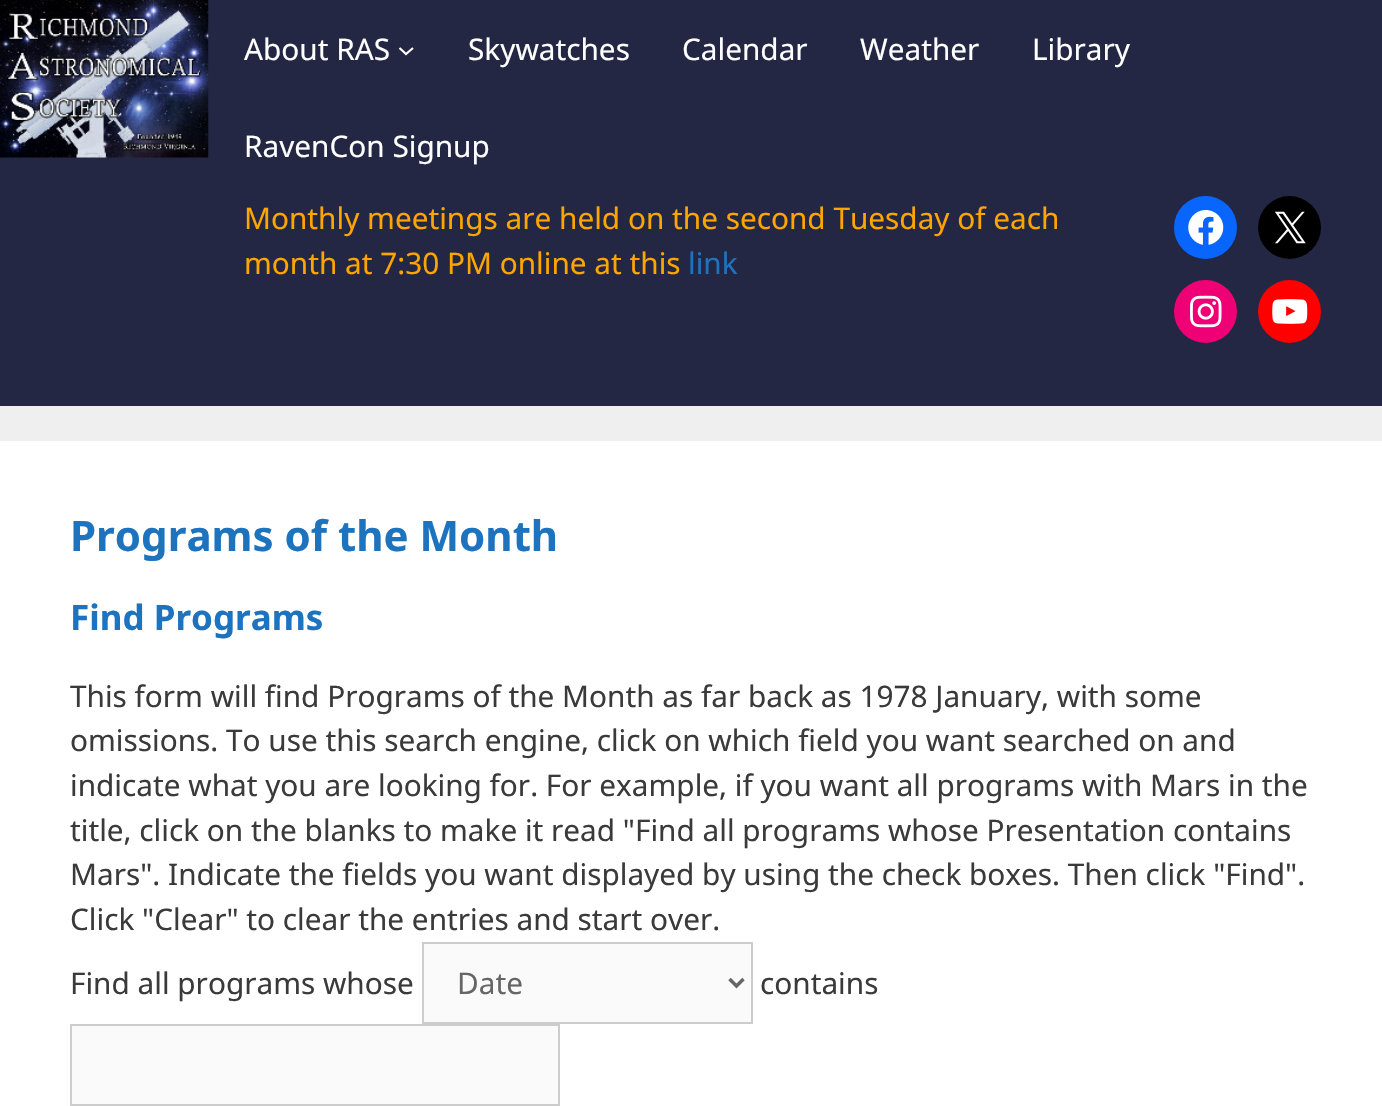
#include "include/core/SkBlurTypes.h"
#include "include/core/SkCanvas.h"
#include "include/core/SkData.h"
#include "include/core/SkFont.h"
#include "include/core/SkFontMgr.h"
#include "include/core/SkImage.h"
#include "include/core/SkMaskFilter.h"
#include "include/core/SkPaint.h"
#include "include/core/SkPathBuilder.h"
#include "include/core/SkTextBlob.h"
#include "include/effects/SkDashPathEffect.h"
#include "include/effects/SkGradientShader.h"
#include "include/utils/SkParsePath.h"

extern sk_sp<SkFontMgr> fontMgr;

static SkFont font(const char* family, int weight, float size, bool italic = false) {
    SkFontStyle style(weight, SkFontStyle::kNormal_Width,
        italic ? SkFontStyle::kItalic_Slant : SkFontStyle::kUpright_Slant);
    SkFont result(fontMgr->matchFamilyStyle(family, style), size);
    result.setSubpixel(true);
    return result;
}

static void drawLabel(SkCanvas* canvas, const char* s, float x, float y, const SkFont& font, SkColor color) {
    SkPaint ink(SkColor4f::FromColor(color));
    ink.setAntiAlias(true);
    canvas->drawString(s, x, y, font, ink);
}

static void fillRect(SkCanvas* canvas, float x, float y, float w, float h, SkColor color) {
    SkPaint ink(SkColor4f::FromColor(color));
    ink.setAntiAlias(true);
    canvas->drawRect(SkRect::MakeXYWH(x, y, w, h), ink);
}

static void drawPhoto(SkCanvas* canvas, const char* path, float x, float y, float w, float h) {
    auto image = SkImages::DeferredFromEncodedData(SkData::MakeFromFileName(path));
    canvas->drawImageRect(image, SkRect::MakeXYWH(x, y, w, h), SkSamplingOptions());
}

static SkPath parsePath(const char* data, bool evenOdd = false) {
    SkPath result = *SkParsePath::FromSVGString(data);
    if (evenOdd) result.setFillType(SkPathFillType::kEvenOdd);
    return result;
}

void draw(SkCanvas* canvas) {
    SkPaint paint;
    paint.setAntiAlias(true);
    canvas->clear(0xFFEFEFEF);
    fillRect(canvas, 0, 0, 1382, 406, 0xFF242743);
    drawPhoto(canvas, "assets/img1.png", 0, 0, 209, 158);
    SkFont font1 = font("Noto Sans", 400, 29.75f);
    drawLabel(canvas, "About RAS", 244, 60, font1, 0xFFFFFFFF);
    paint.setStroke(true);
    paint.setStrokeWidth(2.2f);
    paint.setColor(0xFFFFFFFF);
    canvas->drawPath(parsePath("M399.5 48L406 54L413 48"), paint);
    drawLabel(canvas, "Skywatches", 468, 60, font1, 0xFFFFFFFF);
    drawLabel(canvas, "Calendar", 682, 60, font1, 0xFFFFFFFF);
    drawLabel(canvas, "Weather", 860, 60, font1, 0xFFFFFFFF);
    drawLabel(canvas, "Library", 1032, 60, font1, 0xFFFFFFFF);
    drawLabel(canvas, "RavenCon Signup", 244, 157, font1, 0xFFFFFFFF);
    drawLabel(canvas, "Monthly meetings are held on the second Tuesday of each", 244, 229, font1, 0xFFFFA500);
    drawLabel(canvas, "month at 7:30 PM online at this", 244, 274, font1, 0xFFFFA500);
    drawLabel(canvas, "link", 688, 274, font1, 0xFF1E73BE);
    paint.setStroke(false);
    paint.setColor(0xFF0866FF);
    canvas->drawCircle(1205.5f, 227.5f, 31.5f, paint);
    drawPhoto(canvas, "assets/img2.png", 1188, 210, 36, 35);
    paint.setColor(0xFF000000);
    canvas->drawCircle(1289.5f, 227.5f, 31.5f, paint);
    drawPhoto(canvas, "assets/img3.png", 1275, 211, 31, 33);
    paint.setColor(0xFFF00075);
    canvas->drawCircle(1205.5f, 311.5f, 31.5f, paint);
    drawPhoto(canvas, "assets/img4.png", 1190, 295, 32, 33);
    paint.setColor(0xFFFF0000);
    canvas->drawCircle(1289.5f, 311.5f, 31.5f, paint);
    drawPhoto(canvas, "assets/img5.png", 1272, 299, 36, 25);
    fillRect(canvas, 0, 441, 1382, 665, 0xFFFFFFFF);
    SkFont font2 = font("Noto Sans", 700, 42);
    drawLabel(canvas, "Programs of the Month", 70, 551, font2, 0xFF1E73BE);
    SkFont font3 = font("Noto Sans", 700, 35);
    drawLabel(canvas, "Find Programs", 70, 630, font3, 0xFF1E73BE);
    drawLabel(canvas, "This form will find Programs of the Month as far back as 1978 January, with some", 70, 707, font1, 0xFF3A3A3A);
    drawLabel(canvas, "omissions. To use this search engine, click on which field you want searched on and", 70, 751, font1, 0xFF3A3A3A);
    drawLabel(canvas, "indicate what you are looking for. For example, if you want all programs with Mars in the", 70, 796, font1, 0xFF3A3A3A);
    drawLabel(canvas, "title, click on the blanks to make it read \"Find all programs whose Presentation contains", 70, 841, font1, 0xFF3A3A3A);
    drawLabel(canvas, "Mars\". Indicate the fields you want displayed by using the check boxes. Then click \"Find\".", 70, 885, font1, 0xFF3A3A3A);
    drawLabel(canvas, "Click \"Clear\" to clear the entries and start over.", 70, 930, font1, 0xFF3A3A3A);
    drawLabel(canvas, "Find all programs whose", 70, 994, font1, 0xFF3A3A3A);
    paint.setColor(0xFFFAFAFA);
    canvas->drawRect(SkRect::MakeXYWH(423, 943, 329, 80), paint);
    paint.setStroke(true);
    paint.setStrokeWidth(2);
    paint.setColor(0xFFCCCCCC);
    canvas->drawRect(SkRect::MakeXYWH(423, 943, 329, 80), paint);
    paint.setStrokeWidth(3.5f);
    paint.setColor(0xFF666666);
    canvas->drawPath(parsePath("M729.5 979L736.5 986L743.5 979"), paint);
    drawLabel(canvas, "Date", 457, 994, font1, 0xFF666666);
    drawLabel(canvas, "contains", 760, 994, font1, 0xFF3A3A3A);
    paint.setStroke(false);
    paint.setColor(0xFFFAFAFA);
    canvas->drawRect(SkRect::MakeXYWH(71, 1025, 488, 80), paint);
    paint.setStroke(true);
    paint.setStrokeWidth(2);
    paint.setColor(0xFFCCCCCC);
    canvas->drawRect(SkRect::MakeXYWH(71, 1025, 488, 80), paint);
}
